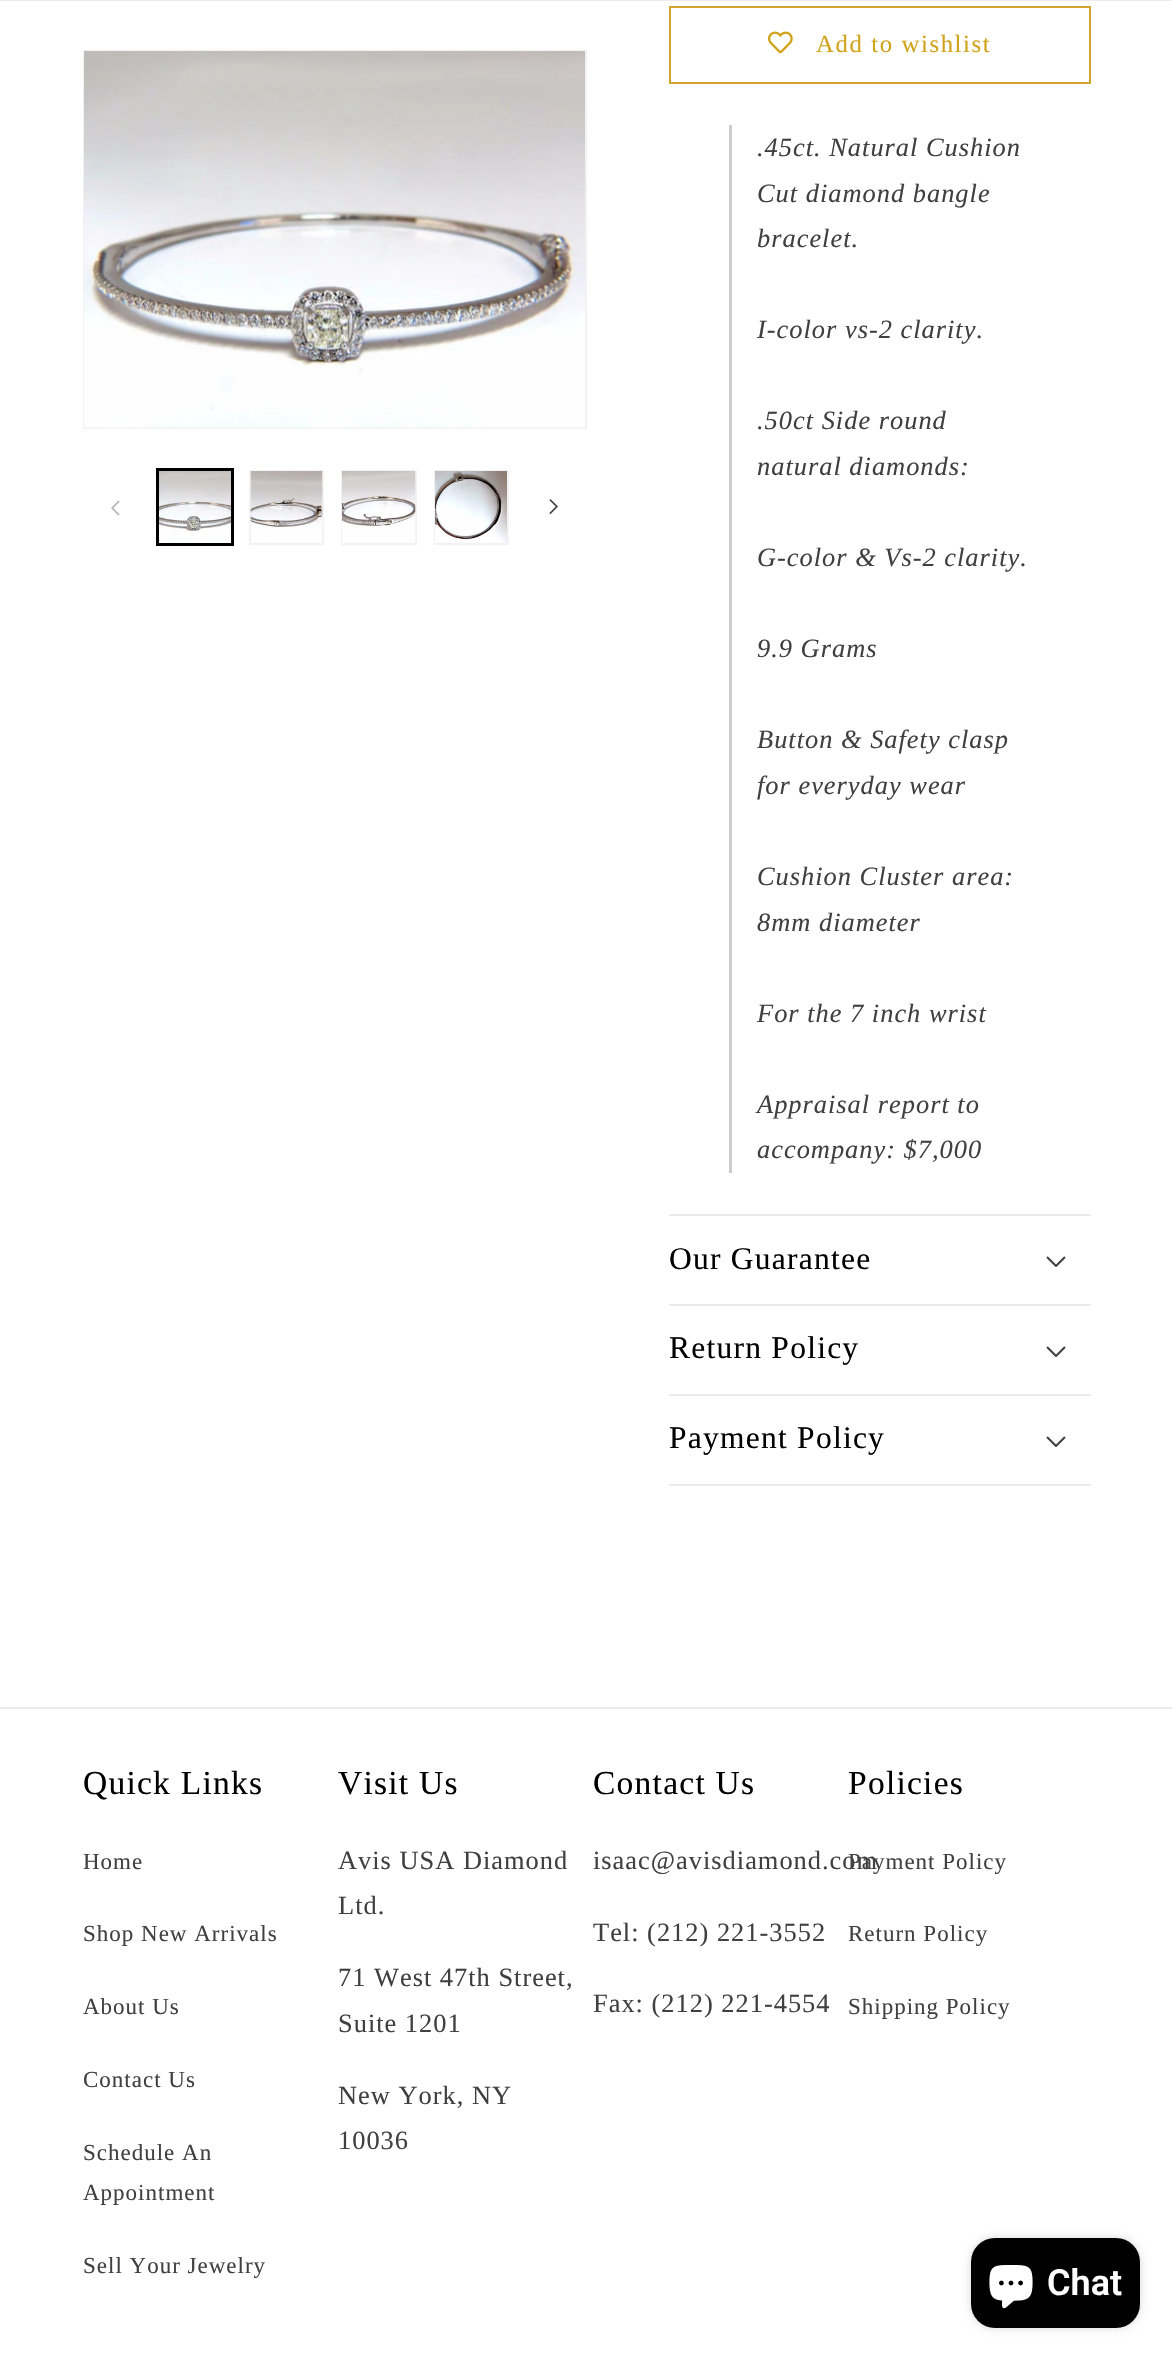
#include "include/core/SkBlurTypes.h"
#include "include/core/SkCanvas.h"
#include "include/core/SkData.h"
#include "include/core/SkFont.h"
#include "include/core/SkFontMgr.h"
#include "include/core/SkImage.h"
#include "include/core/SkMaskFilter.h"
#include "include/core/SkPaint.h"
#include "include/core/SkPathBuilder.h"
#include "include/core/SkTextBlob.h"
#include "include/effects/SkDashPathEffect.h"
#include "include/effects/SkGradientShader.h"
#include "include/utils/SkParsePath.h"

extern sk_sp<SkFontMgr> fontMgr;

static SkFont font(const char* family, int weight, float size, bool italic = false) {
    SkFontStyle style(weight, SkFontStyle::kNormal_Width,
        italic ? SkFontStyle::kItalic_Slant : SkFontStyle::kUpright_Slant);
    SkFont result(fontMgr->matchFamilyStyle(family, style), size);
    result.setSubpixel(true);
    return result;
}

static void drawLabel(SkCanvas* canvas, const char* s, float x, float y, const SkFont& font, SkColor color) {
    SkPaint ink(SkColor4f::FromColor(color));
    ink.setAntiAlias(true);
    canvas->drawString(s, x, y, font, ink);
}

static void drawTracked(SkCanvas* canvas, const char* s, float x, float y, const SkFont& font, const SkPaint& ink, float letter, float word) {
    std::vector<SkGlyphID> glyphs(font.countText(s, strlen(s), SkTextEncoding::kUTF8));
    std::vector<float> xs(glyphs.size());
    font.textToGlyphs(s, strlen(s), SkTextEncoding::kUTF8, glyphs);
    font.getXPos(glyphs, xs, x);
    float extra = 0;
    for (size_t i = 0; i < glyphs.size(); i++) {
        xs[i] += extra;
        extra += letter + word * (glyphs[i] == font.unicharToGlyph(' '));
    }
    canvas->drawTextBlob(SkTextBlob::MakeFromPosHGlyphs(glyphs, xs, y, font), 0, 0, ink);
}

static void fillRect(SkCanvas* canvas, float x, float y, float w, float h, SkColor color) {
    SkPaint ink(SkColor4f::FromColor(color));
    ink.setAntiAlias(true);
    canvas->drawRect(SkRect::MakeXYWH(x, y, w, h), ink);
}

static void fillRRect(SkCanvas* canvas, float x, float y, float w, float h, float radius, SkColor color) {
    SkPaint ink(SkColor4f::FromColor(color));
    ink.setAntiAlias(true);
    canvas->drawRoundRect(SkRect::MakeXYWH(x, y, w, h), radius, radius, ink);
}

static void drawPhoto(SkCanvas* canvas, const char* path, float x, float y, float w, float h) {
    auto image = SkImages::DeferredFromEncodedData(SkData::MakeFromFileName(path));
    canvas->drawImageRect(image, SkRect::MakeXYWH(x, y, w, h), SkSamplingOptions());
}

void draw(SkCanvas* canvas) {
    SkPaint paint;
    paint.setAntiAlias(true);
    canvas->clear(0xFFFFFFFF);
    fillRect(canvas, 0, 0, 1172, 1, 0xFFEBEBEB);
    paint.setStroke(true);
    paint.setStrokeWidth(2);
    paint.setColor(0xFFF2F2F2);
    canvas->drawRect(SkRect::MakeXYWH(84, 51, 502, 377), paint);
    drawPhoto(canvas, "assets/img1.png", 84, 51, 501, 377);
    drawPhoto(canvas, "assets/img2.png", 111, 500, 9, 16);
    paint.setColor(0xFF000000);
    canvas->drawRect(SkRect::MakeXYWH(157, 469, 76, 76), paint);
    canvas->drawRect(SkRect::MakeXYWH(159, 471, 73, 73), paint);
    drawPhoto(canvas, "assets/img3.png", 159, 471, 72, 72);
    paint.setColor(0xFFF2F2F2);
    canvas->drawRect(SkRect::MakeXYWH(250, 471, 73, 73), paint);
    drawPhoto(canvas, "assets/img4.png", 250, 471, 73, 66);
    canvas->drawRect(SkRect::MakeXYWH(342, 471, 74, 73), paint);
    drawPhoto(canvas, "assets/img5.png", 342, 471, 74, 72);
    canvas->drawRect(SkRect::MakeXYWH(435, 471, 73, 73), paint);
    drawPhoto(canvas, "assets/img6.png", 435, 471, 72, 72);
    drawPhoto(canvas, "assets/img7.png", 549, 499, 9, 15);
    drawPhoto(canvas, "assets/img8.png", 768, 31, 25, 23);
    paint.setColor(0xFFD3A42E);
    canvas->drawRect(SkRect::MakeXYWH(670, 7, 420, 76), paint);
    SkFont font1 = font("Liberation Serif", 400, 24.75f);
    paint.setStroke(false);
    paint.setColor(0xFFD1A31A);
    drawTracked(canvas, "Add to wishlist", 816, 52, font1, paint, 1.6f, 0);
    fillRect(canvas, 729, 125, 3, 1048, 0xFFCCCCCC);
    SkFont font2 = font("Liberation Serif", 400, 26.4f, true);
    paint.setColor(0xFF404040);
    drawTracked(canvas, ".45ct. Natural Cushion", 757, 156, font2, paint, 1, 0);
    drawTracked(canvas, "Cut diamond bangle", 757, 202, font2, paint, 1, 0);
    drawTracked(canvas, "bracelet.", 757, 247, font2, paint, 1, 0);
    drawTracked(canvas, "I-color vs-2 clarity.", 757, 338, font2, paint, 1, 0);
    drawTracked(canvas, ".50ct Side round", 757, 429, font2, paint, 1, 0);
    drawTracked(canvas, "natural diamonds:", 757, 475, font2, paint, 1, 0);
    drawTracked(canvas, "G-color & Vs-2 clarity.", 757, 566, font2, paint, 1, 0);
    drawTracked(canvas, "9.9 Grams", 757, 657, font2, paint, 1, 0);
    drawTracked(canvas, "Button & Safety clasp", 757, 748, font2, paint, 1, 0);
    drawTracked(canvas, "for everyday wear", 757, 794, font2, paint, 1, 0);
    drawTracked(canvas, "Cushion Cluster area:", 757, 885, font2, paint, 1, 0);
    drawTracked(canvas, "8mm diameter", 757, 931, font2, paint, 1, 0);
    drawTracked(canvas, "For the 7 inch wrist", 757, 1022, font2, paint, 1, 0);
    drawTracked(canvas, "Appraisal report to", 757, 1113, font2, paint, 1, 0);
    drawTracked(canvas, "accompany: $7,000", 757, 1158, font2, paint, 1, 0);
    fillRect(canvas, 669, 1214, 422, 2, 0xFFEBEBEB);
    fillRect(canvas, 669, 1304, 422, 2, 0xFFEBEBEB);
    SkFont font3 = font("Liberation Serif", 400, 31.5f);
    paint.setColor(0xFF000000);
    drawTracked(canvas, "Our Guarantee", 669, 1269, font3, paint, 1.25f, 0);
    drawPhoto(canvas, "assets/img9.png", 1046, 1256, 20, 11);
    fillRect(canvas, 669, 1394, 422, 2, 0xFFEBEBEB);
    drawTracked(canvas, "Return Policy", 669, 1358, font3, paint, 1.25f, 0);
    drawPhoto(canvas, "assets/img9.png", 1046, 1346, 20, 11);
    fillRect(canvas, 669, 1484, 422, 2, 0xFFEBEBEB);
    drawTracked(canvas, "Payment Policy", 669, 1448, font3, paint, 1.25f, 0);
    drawPhoto(canvas, "assets/img9.png", 1046, 1436, 20, 11);
    fillRect(canvas, 0, 1707, 1172, 2, 0xFFEBEBEB);
    SkFont font4 = font("Liberation Serif", 400, 33.5f);
    drawTracked(canvas, "Quick Links", 83, 1794, font4, paint, 1.25f, 0);
    SkFont font5 = font("Liberation Serif", 400, 23);
    paint.setColor(0xFF404040);
    drawTracked(canvas, "Home", 83, 1869, font5, paint, 1, 0);
    drawTracked(canvas, "Shop New Arrivals", 83, 1941, font5, paint, 1, 0);
    drawTracked(canvas, "About Us", 83, 2014, font5, paint, 1, 0);
    drawTracked(canvas, "Contact Us", 83, 2087, font5, paint, 1, 0);
    drawTracked(canvas, "Schedule An", 83, 2160, font5, paint, 1, 0);
    drawTracked(canvas, "Appointment", 83, 2200, font5, paint, 1, 0);
    drawTracked(canvas, "Sell Your Jewelry", 83, 2273, font5, paint, 1, 0);
    paint.setColor(0xFF000000);
    drawTracked(canvas, "Visit Us", 338, 1794, font4, paint, 1.25f, 0);
    SkFont font6 = font("Liberation Serif", 400, 26.4f);
    paint.setColor(0xFF404040);
    drawTracked(canvas, "Avis USA Diamond", 338, 1869, font6, paint, 1, 0);
    drawTracked(canvas, "Ltd.", 338, 1914, font6, paint, 1, 0);
    drawTracked(canvas, "71 West 47th Street,", 338, 1986, font6, paint, 1, 0);
    drawTracked(canvas, "Suite 1201", 338, 2032, font6, paint, 1, 0);
    drawTracked(canvas, "New York, NY", 338, 2104, font6, paint, 1, 0);
    drawTracked(canvas, "10036", 338, 2149, font6, paint, 1, 0);
    paint.setColor(0xFF000000);
    drawTracked(canvas, "Contact Us", 593, 1794, font4, paint, 1.25f, 0);
    paint.setColor(0xFF404040);
    drawTracked(canvas, "isaac@avisdiamond.com", 593, 1869, font6, paint, 1, 0);
    drawTracked(canvas, "Tel: (212) 221-3552", 593, 1941, font6, paint, 1, 0);
    drawTracked(canvas, "Fax: (212) 221-4554", 593, 2012, font6, paint, 1, 0);
    paint.setColor(0xFF000000);
    drawTracked(canvas, "Policies", 848, 1794, font4, paint, 1.25f, 0);
    paint.setColor(0xFF404040);
    drawTracked(canvas, "Payment Policy", 848, 1869, font5, paint, 1, 0);
    drawTracked(canvas, "Return Policy", 848, 1941, font5, paint, 1, 0);
    drawTracked(canvas, "Shipping Policy", 848, 2014, font5, paint, 1, 0);
    paint.setColor(0x26000000);
    paint.setMaskFilter(SkMaskFilter::MakeBlur(kNormal_SkBlurStyle, 4));
    canvas->drawRoundRect(SkRect::MakeXYWH(971, 2238, 169, 90), 24, 24, paint);
    paint.setMaskFilter(nullptr);
    fillRRect(canvas, 971, 2238, 169, 90, 24, 0xFF000000);
    drawPhoto(canvas, "assets/img10.png", 989, 2265, 44, 44);
    SkFont font7 = font("Roboto", 600, 36);
    drawLabel(canvas, "Chat", 1047, 2295, font7, 0xFFFFFFFF);
}
